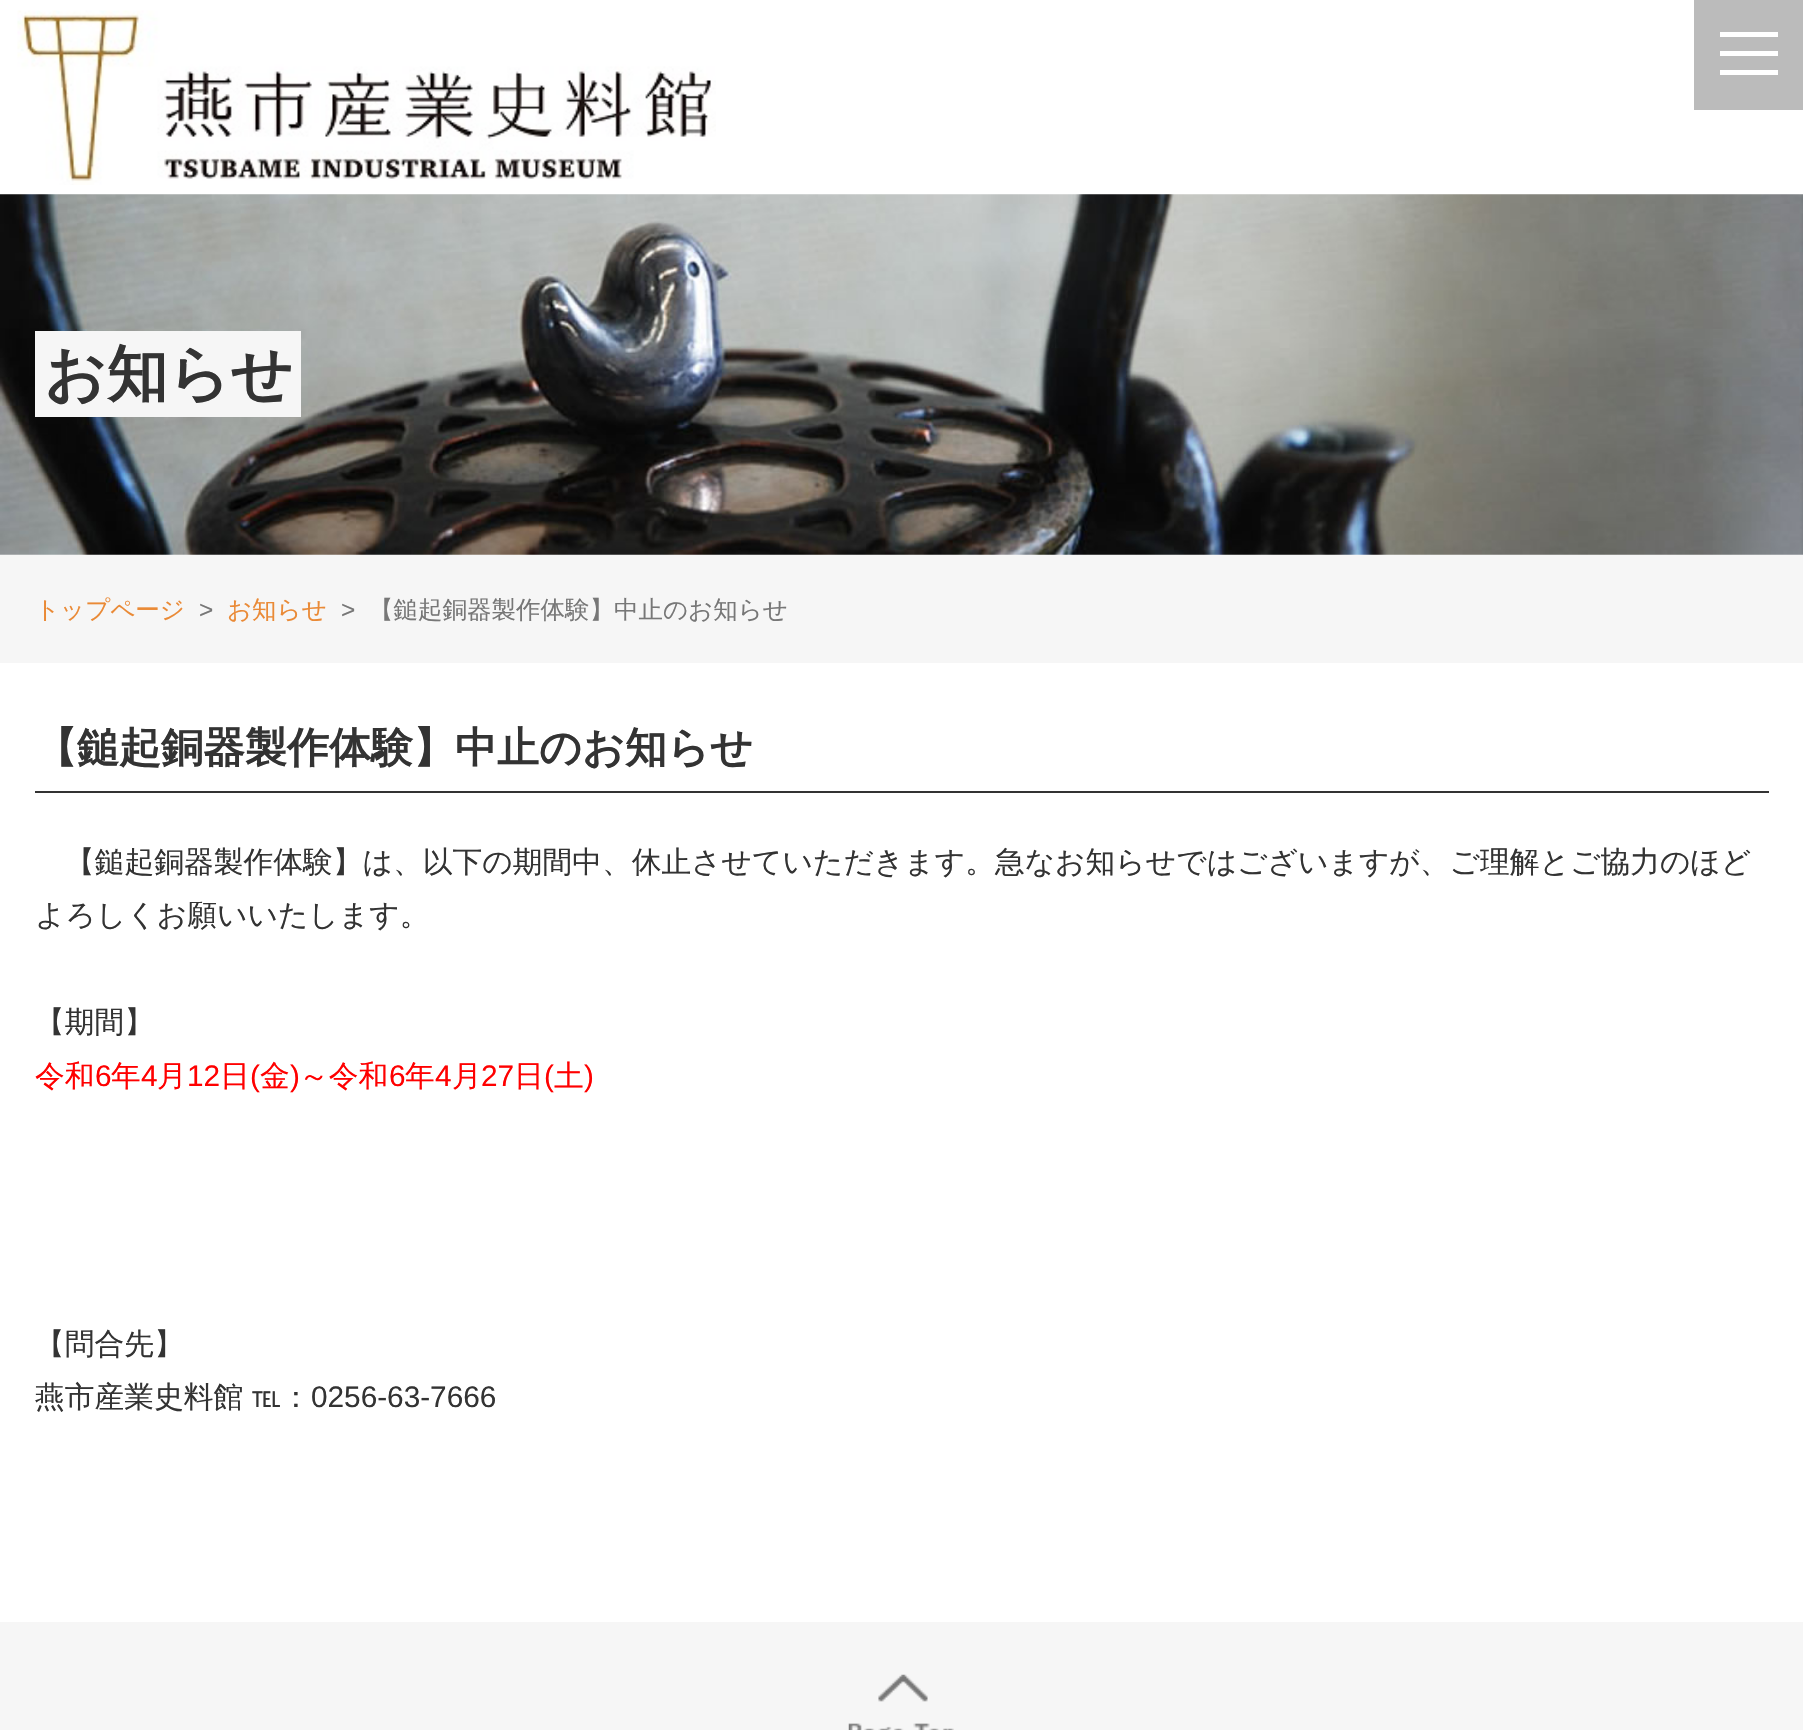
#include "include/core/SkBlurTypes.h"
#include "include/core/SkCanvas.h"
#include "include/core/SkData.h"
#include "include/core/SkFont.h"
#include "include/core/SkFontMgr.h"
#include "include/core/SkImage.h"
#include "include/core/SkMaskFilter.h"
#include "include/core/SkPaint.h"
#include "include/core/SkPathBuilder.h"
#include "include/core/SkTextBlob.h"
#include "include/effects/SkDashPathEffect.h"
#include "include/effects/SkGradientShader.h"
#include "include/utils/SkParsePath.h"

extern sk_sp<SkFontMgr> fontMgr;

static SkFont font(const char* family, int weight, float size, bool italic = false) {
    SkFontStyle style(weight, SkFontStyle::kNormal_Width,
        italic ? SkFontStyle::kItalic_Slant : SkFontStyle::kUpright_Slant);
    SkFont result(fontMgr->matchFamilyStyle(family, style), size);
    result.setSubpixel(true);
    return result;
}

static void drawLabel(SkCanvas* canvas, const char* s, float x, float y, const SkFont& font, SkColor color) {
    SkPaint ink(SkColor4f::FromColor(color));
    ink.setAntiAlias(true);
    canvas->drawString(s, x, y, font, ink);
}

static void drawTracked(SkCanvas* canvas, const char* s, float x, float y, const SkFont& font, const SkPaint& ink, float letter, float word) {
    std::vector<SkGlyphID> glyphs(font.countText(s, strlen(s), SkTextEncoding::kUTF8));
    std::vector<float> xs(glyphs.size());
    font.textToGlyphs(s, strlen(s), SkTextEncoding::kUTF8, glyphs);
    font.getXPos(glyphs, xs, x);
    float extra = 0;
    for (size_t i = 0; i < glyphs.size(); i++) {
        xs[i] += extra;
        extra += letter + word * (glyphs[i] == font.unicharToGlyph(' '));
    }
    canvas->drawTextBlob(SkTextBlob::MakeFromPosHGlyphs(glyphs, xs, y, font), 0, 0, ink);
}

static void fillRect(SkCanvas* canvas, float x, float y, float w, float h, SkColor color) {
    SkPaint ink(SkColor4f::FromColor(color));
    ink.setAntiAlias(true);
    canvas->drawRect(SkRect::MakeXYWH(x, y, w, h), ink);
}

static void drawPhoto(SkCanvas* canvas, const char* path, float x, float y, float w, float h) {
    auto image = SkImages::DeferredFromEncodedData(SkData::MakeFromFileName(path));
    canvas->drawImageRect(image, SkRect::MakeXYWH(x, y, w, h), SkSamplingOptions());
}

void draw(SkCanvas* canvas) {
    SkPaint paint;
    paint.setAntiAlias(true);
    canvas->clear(0xFFFFFFFF);
    drawPhoto(canvas, "assets/img1.png", 17, 10, 699, 175);
    fillRect(canvas, 1694, 0, 109, 110, 0xFFBBBBBB);
    fillRect(canvas, 1720, 32, 58, 5, 0xFFFFFFFF);
    fillRect(canvas, 1720, 51, 58, 5, 0xFFFFFFFF);
    fillRect(canvas, 1720, 70, 58, 5, 0xFFFFFFFF);
    drawPhoto(canvas, "assets/img2.png", 0, 194, 1803, 361);
    fillRect(canvas, 35, 331, 266, 86, 0xFFF6F6F6);
    SkFont font1 = font("WenQuanYi Zen Hei", 700, 61.25f);
    drawLabel(canvas, "お知らせ", 44, 395, font1, 0xFF333333);
    fillRect(canvas, 0, 555, 1803, 108, 0xFFF6F6F6);
    SkFont font2 = font("WenQuanYi Zen Hei", 500, 24.5f);
    drawLabel(canvas, "トップページ", 35, 618, font2, 0xFFEA8A36);
    SkFont font3 = font("Liberation Sans", 400, 24.5f);
    drawLabel(canvas, ">", 199, 618, font3, 0xFF777777);
    drawLabel(canvas, "お知らせ", 227, 618, font2, 0xFFEA8A36);
    drawLabel(canvas, ">", 341, 618, font3, 0xFF777777);
    drawLabel(canvas, "【鎚起銅器製作体験】中止のお知らせ", 369, 618, font2, 0xFF777777);
    fillRect(canvas, 35, 791, 1734, 2, 0xFF333333);
    SkFont font4 = font("WenQuanYi Zen Hei", 700, 42);
    drawLabel(canvas, "【鎚起銅器製作体験】中止のお知らせ", 35, 762, font4, 0xFF333333);
    SkFont font5 = font("WenQuanYi Zen Hei", 500, 29.75f);
    drawLabel(canvas, "【鎚起銅器製作体験】は、以下の期間中、休止させていただきます。急なお知らせではございますが、ご理解とご協力のほど", 65, 872, font5, 0xFF333333);
    drawLabel(canvas, "よろしくお願いいたします。", 35, 925, font5, 0xFF333333);
    drawLabel(canvas, "【期間】", 35, 1032, font5, 0xFF333333);
    drawLabel(canvas, "令和", 35, 1086, font5, 0xFFFF0000);
    SkFont font6 = font("Liberation Sans", 400, 29.75f);
    drawLabel(canvas, "6", 95, 1086, font6, 0xFFFF0000);
    drawLabel(canvas, "年", 111, 1086, font5, 0xFFFF0000);
    drawLabel(canvas, "4", 141, 1086, font6, 0xFFFF0000);
    drawLabel(canvas, "月", 157, 1086, font5, 0xFFFF0000);
    drawLabel(canvas, "12", 187, 1086, font6, 0xFFFF0000);
    drawLabel(canvas, "日", 220, 1086, font5, 0xFFFF0000);
    drawLabel(canvas, "(", 250, 1086, font6, 0xFFFF0000);
    drawLabel(canvas, "金", 260, 1086, font5, 0xFFFF0000);
    drawLabel(canvas, ")", 290, 1086, font6, 0xFFFF0000);
    drawLabel(canvas, "～令和", 299, 1086, font5, 0xFFFF0000);
    drawLabel(canvas, "6", 389, 1086, font6, 0xFFFF0000);
    drawLabel(canvas, "年", 405, 1086, font5, 0xFFFF0000);
    drawLabel(canvas, "4", 435, 1086, font6, 0xFFFF0000);
    drawLabel(canvas, "月", 452, 1086, font5, 0xFFFF0000);
    drawLabel(canvas, "27", 481, 1086, font6, 0xFFFF0000);
    drawLabel(canvas, "日", 514, 1086, font5, 0xFFFF0000);
    drawLabel(canvas, "(", 544, 1086, font6, 0xFFFF0000);
    drawLabel(canvas, "土", 554, 1086, font5, 0xFFFF0000);
    drawLabel(canvas, ")", 584, 1086, font6, 0xFFFF0000);
    drawLabel(canvas, "【問合先】", 35, 1354, font5, 0xFF333333);
    paint.setColor(0xFF333333);
    drawTracked(canvas, "燕市産業史料館 ℡：", 35, 1407, font5, paint, 0, -1);
    drawLabel(canvas, "0256-63-7666", 311, 1407, font6, 0xFF333333);
    fillRect(canvas, 0, 1622, 1803, 108, 0xFFF6F6F6);
    drawPhoto(canvas, "assets/img3.png", 848, 1674, 106, 56);
}
